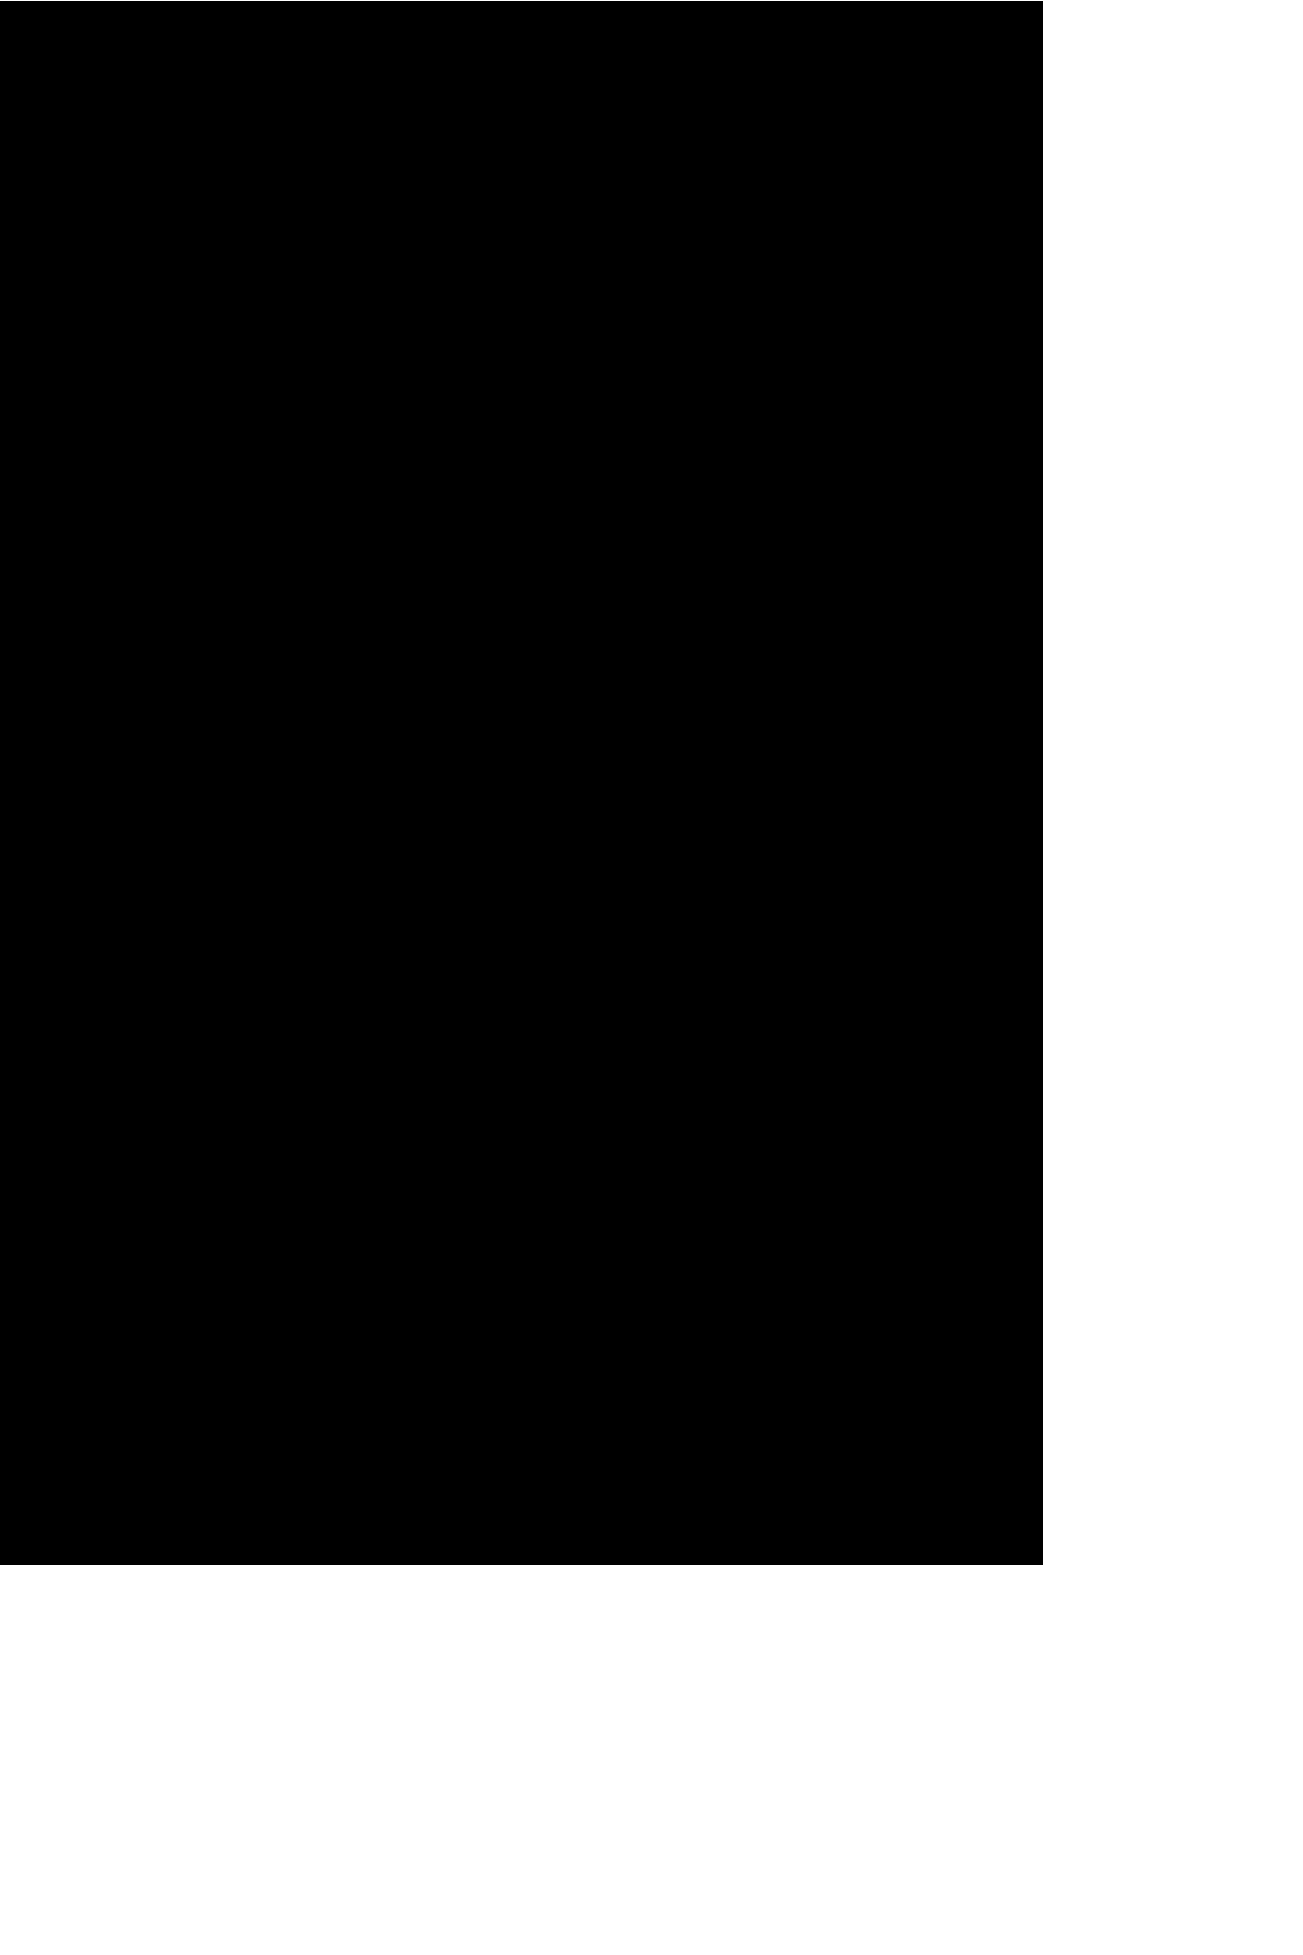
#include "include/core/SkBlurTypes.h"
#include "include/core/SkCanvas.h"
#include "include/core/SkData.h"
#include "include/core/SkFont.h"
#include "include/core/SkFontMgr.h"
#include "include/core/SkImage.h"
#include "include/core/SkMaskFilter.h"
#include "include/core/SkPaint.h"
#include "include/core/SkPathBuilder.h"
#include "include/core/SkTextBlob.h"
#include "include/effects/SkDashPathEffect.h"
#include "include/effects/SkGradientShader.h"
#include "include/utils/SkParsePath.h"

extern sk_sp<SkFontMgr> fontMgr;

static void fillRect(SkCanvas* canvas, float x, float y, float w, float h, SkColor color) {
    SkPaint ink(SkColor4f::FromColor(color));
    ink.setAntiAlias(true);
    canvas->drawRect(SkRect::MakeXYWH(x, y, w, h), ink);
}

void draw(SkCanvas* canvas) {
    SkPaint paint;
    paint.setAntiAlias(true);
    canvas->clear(0xFFFFFFFF);
    fillRect(canvas, 0, 1, 1043, 1564, 0xFF000000);
}
